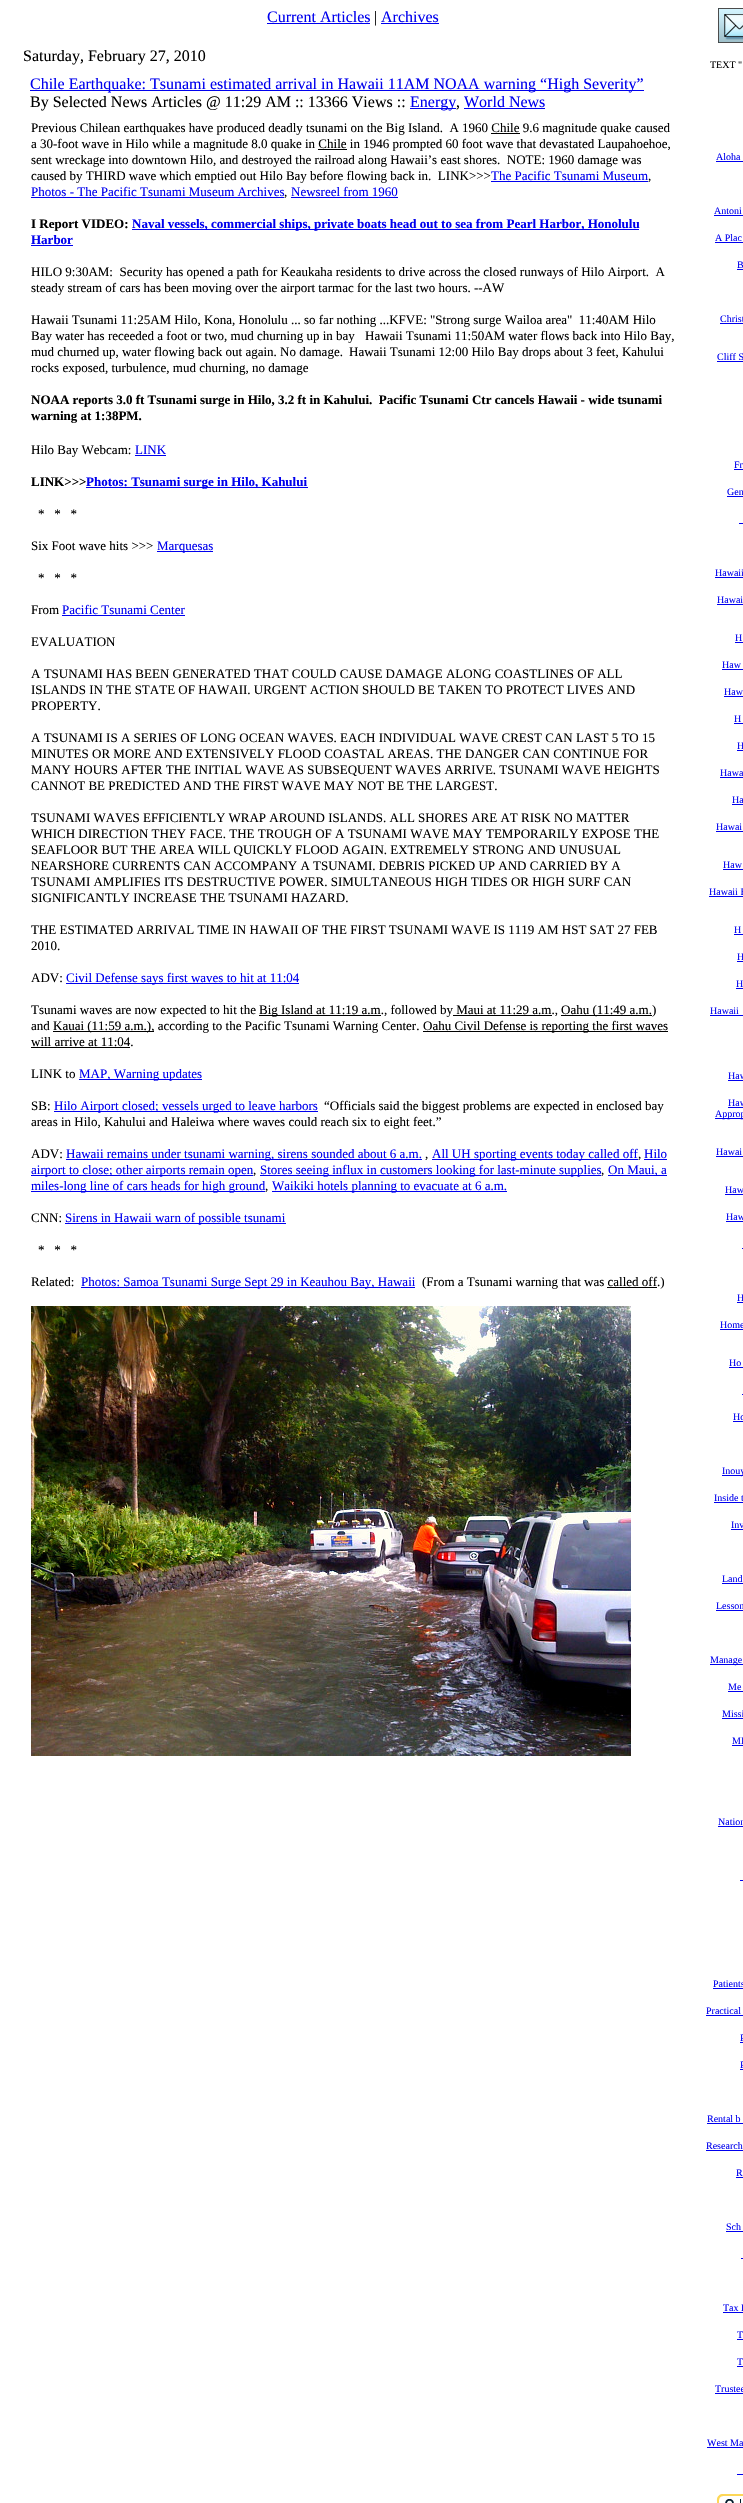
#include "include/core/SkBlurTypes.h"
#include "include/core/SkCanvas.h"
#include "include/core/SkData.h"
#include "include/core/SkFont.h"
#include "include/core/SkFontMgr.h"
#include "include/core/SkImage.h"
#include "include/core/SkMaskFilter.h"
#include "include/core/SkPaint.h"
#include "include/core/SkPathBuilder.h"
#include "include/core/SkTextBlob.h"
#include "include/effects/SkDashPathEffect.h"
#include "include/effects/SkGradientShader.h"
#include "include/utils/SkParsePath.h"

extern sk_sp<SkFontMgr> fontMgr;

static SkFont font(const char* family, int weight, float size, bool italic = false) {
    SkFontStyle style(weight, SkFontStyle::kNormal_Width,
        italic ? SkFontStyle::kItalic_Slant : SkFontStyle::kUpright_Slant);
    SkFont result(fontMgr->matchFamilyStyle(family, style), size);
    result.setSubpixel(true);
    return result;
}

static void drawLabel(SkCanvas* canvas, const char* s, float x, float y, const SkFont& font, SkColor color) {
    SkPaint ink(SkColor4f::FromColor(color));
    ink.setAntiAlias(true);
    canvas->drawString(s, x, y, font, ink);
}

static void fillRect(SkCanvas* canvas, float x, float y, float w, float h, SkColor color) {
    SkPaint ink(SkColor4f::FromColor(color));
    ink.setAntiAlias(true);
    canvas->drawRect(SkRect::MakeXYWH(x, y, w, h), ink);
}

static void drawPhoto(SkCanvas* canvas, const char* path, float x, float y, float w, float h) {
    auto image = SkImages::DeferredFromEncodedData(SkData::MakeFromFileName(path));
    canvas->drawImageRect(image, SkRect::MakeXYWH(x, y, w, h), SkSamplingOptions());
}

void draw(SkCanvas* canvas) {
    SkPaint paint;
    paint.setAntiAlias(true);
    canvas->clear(0xFFFFFFFF);
    SkFont font1 = font("Liberation Serif", 400, 16);
    drawLabel(canvas, "Current Articles", 267, 22, font1, 0xFF0000EE);
    fillRect(canvas, 267, 23, 103, 1, 0xFF0000EE);
    drawLabel(canvas, "|", 374, 22, font1, 0xFF000000);
    drawLabel(canvas, "Archives", 381, 22, font1, 0xFF0000EE);
    fillRect(canvas, 381, 23, 58, 1, 0xFF0000EE);
    drawLabel(canvas, "Saturday, February 27, 2010", 23, 61, font1, 0xFF000000);
    fillRect(canvas, 30, 90, 614, 1, 0xFF0000EE);
    drawLabel(canvas, "Chile Earthquake: Tsunami estimated arrival in Hawaii 11AM NOAA warning “High Severity”", 30, 89, font1, 0xFF0000EE);
    drawLabel(canvas, "By Selected News Articles @ 11:29 AM :: 13366 Views ::", 30, 107, font1, 0xFF000000);
    fillRect(canvas, 410, 108, 46, 1, 0xFF0000EE);
    drawLabel(canvas, "Energy", 410, 107, font1, 0xFF0000EE);
    drawLabel(canvas, ",", 456, 107, font1, 0xFF000000);
    drawLabel(canvas, "World News", 464, 107, font1, 0xFF0000EE);
    fillRect(canvas, 464, 108, 81, 1, 0xFF0000EE);
    SkFont font2 = font("Liberation Serif", 400, 13);
    drawLabel(canvas, "Previous Chilean earthquakes have produced deadly tsunami on the Big Island.  A 1960 Chile 9.6 magnitude quake caused", 31, 132, font2, 0xFF000000);
    fillRect(canvas, 491, 133, 29, 1, 0xFF000000);
    drawLabel(canvas, "a 30-foot wave in Hilo while a magnitude 8.0 quake in Chile in 1946 prompted 60 foot wave that devastated Laupahoehoe,", 31, 148, font2, 0xFF000000);
    fillRect(canvas, 318, 149, 29, 1, 0xFF000000);
    drawLabel(canvas, "sent wreckage into downtown Hilo, and destroyed the railroad along Hawaii’s east shores.  NOTE: 1960 damage was", 31, 164, font2, 0xFF000000);
    drawLabel(canvas, "caused by THIRD wave which emptied out Hilo Bay before flowing back in.  LINK>>>", 31, 180, font2, 0xFF000000);
    drawLabel(canvas, "The Pacific Tsunami Museum", 491, 180, font2, 0xFF0000EE);
    fillRect(canvas, 491, 181, 157, 1, 0xFF0000EE);
    drawLabel(canvas, ",", 648, 180, font2, 0xFF000000);
    drawLabel(canvas, "Photos - The Pacific Tsunami Museum Archives", 31, 196, font2, 0xFF0000EE);
    fillRect(canvas, 31, 197, 253, 1, 0xFF0000EE);
    drawLabel(canvas, ",", 284, 196, font2, 0xFF000000);
    drawLabel(canvas, "Newsreel from 1960", 291, 196, font2, 0xFF0000EE);
    fillRect(canvas, 291, 197, 107, 1, 0xFF0000EE);
    SkFont font3 = font("Liberation Serif", 700, 13);
    drawLabel(canvas, "I Report VIDEO:", 31, 228, font3, 0xFF000000);
    fillRect(canvas, 132, 229, 507, 1, 0xFF0000EE);
    drawLabel(canvas, "Naval vessels, commercial ships, private boats head out to sea from Pearl Harbor, Honolulu", 132, 228, font3, 0xFF0000EE);
    drawLabel(canvas, "Harbor", 31, 244, font3, 0xFF0000EE);
    fillRect(canvas, 31, 245, 42, 1, 0xFF0000EE);
    drawLabel(canvas, "HILO 9:30AM:  Security has opened a path for Keaukaha residents to drive across the closed runways of Hilo Airport.  A", 31, 276, font2, 0xFF000000);
    drawLabel(canvas, "steady stream of cars has been moving over the airport tarmac for the last two hours. --AW", 31, 292, font2, 0xFF000000);
    drawLabel(canvas, "Hawaii Tsunami 11:25AM Hilo, Kona, Honolulu ... so far nothing ...KFVE: \"Strong surge Wailoa area\"  11:40AM Hilo", 31, 324, font2, 0xFF000000);
    drawLabel(canvas, "Bay water has receeded a foot or two, mud churning up in bay", 31, 340, font2, 0xFF000000);
    drawLabel(canvas, "Hawaii Tsunami 11:50AM water flows back into Hilo Bay,", 365, 340, font2, 0xFF000000);
    drawLabel(canvas, "mud churned up, water flowing back out again. No damage.", 31, 356, font2, 0xFF000000);
    drawLabel(canvas, "Hawaii Tsunami 12:00 Hilo Bay drops about 3 feet, Kahului", 349, 356, font2, 0xFF000000);
    drawLabel(canvas, "rocks exposed, turbulence, mud churning, no damage", 31, 372, font2, 0xFF000000);
    drawLabel(canvas, "NOAA reports 3.0 ft Tsunami surge in Hilo, 3.2 ft in Kahului.  Pacific Tsunami Ctr cancels Hawaii - wide tsunami", 31, 404, font3, 0xFF000000);
    drawLabel(canvas, "warning at 1:38PM.", 31, 420, font3, 0xFF000000);
    drawLabel(canvas, "Hilo Bay Webcam:", 31, 454, font2, 0xFF000000);
    drawLabel(canvas, "LINK", 135, 454, font2, 0xFF0000EE);
    fillRect(canvas, 135, 455, 31, 1, 0xFF0000EE);
    drawLabel(canvas, "LINK>>>", 31, 486, font3, 0xFF000000);
    fillRect(canvas, 86, 487, 222, 1, 0xFF0000EE);
    drawLabel(canvas, "Photos: Tsunami surge in Hilo, Kahului", 86, 486, font3, 0xFF0000EE);
    drawLabel(canvas, "*   *   *", 38, 518, font2, 0xFF000000);
    drawLabel(canvas, "Six Foot wave hits >>>", 31, 550, font2, 0xFF000000);
    fillRect(canvas, 157, 551, 56, 1, 0xFF0000EE);
    drawLabel(canvas, "Marquesas", 157, 550, font2, 0xFF0000EE);
    drawLabel(canvas, "*   *   *", 38, 582, font2, 0xFF000000);
    drawLabel(canvas, "From", 31, 614, font2, 0xFF000000);
    drawLabel(canvas, "Pacific Tsunami Center", 62, 614, font2, 0xFF0000EE);
    fillRect(canvas, 62, 615, 123, 1, 0xFF0000EE);
    drawLabel(canvas, "EVALUATION", 31, 646, font2, 0xFF000000);
    drawLabel(canvas, "A TSUNAMI HAS BEEN GENERATED THAT COULD CAUSE DAMAGE ALONG COASTLINES OF ALL", 31, 678, font2, 0xFF000000);
    drawLabel(canvas, "ISLANDS IN THE STATE OF HAWAII. URGENT ACTION SHOULD BE TAKEN TO PROTECT LIVES AND", 31, 694, font2, 0xFF000000);
    drawLabel(canvas, "PROPERTY.", 31, 710, font2, 0xFF000000);
    drawLabel(canvas, "A TSUNAMI IS A SERIES OF LONG OCEAN WAVES. EACH INDIVIDUAL WAVE CREST CAN LAST 5 TO 15", 31, 742, font2, 0xFF000000);
    drawLabel(canvas, "MINUTES OR MORE AND EXTENSIVELY FLOOD COASTAL AREAS. THE DANGER CAN CONTINUE FOR", 31, 758, font2, 0xFF000000);
    drawLabel(canvas, "MANY HOURS AFTER THE INITIAL WAVE AS SUBSEQUENT WAVES ARRIVE. TSUNAMI WAVE HEIGHTS", 31, 774, font2, 0xFF000000);
    drawLabel(canvas, "CANNOT BE PREDICTED AND THE FIRST WAVE MAY NOT BE THE LARGEST.", 31, 790, font2, 0xFF000000);
    drawLabel(canvas, "TSUNAMI WAVES EFFICIENTLY WRAP AROUND ISLANDS. ALL SHORES ARE AT RISK NO MATTER", 31, 822, font2, 0xFF000000);
    drawLabel(canvas, "WHICH DIRECTION THEY FACE. THE TROUGH OF A TSUNAMI WAVE MAY TEMPORARILY EXPOSE THE", 31, 838, font2, 0xFF000000);
    drawLabel(canvas, "SEAFLOOR BUT THE AREA WILL QUICKLY FLOOD AGAIN. EXTREMELY STRONG AND UNUSUAL", 31, 854, font2, 0xFF000000);
    drawLabel(canvas, "NEARSHORE CURRENTS CAN ACCOMPANY A TSUNAMI. DEBRIS PICKED UP AND CARRIED BY A", 31, 870, font2, 0xFF000000);
    drawLabel(canvas, "TSUNAMI AMPLIFIES ITS DESTRUCTIVE POWER. SIMULTANEOUS HIGH TIDES OR HIGH SURF CAN", 31, 886, font2, 0xFF000000);
    drawLabel(canvas, "SIGNIFICANTLY INCREASE THE TSUNAMI HAZARD.", 31, 902, font2, 0xFF000000);
    drawLabel(canvas, "THE ESTIMATED ARRIVAL TIME IN HAWAII OF THE FIRST TSUNAMI WAVE IS 1119 AM HST SAT 27 FEB", 31, 934, font2, 0xFF000000);
    drawLabel(canvas, "2010.", 31, 950, font2, 0xFF000000);
    drawLabel(canvas, "ADV:", 31, 982, font2, 0xFF000000);
    fillRect(canvas, 66, 983, 233, 1, 0xFF0000EE);
    drawLabel(canvas, "Civil Defense says first waves to hit at 11:04", 66, 982, font2, 0xFF0000EE);
    drawLabel(canvas, "Tsunami waves are now expected to hit the", 31, 1014, font2, 0xFF000000);
    fillRect(canvas, 259, 1015, 122, 1, 0xFF000000);
    drawLabel(canvas, "Big Island at 11:19 a.m., followed by Maui at 11:29 a.m.,", 259, 1014, font2, 0xFF000000);
    fillRect(canvas, 453, 1015, 99, 1, 0xFF000000);
    fillRect(canvas, 561, 1015, 91, 1, 0xFF000000);
    drawLabel(canvas, "Oahu (11:49 a.m.)", 561, 1014, font2, 0xFF000000);
    drawLabel(canvas, "and", 31, 1030, font2, 0xFF000000);
    fillRect(canvas, 53, 1031, 101, 1, 0xFF000000);
    drawLabel(canvas, "Kauai (11:59 a.m.), according to the Pacific Tsunami Warning Center.", 53, 1030, font2, 0xFF000000);
    fillRect(canvas, 423, 1031, 245, 1, 0xFF000000);
    drawLabel(canvas, "Oahu Civil Defense is reporting the first waves", 423, 1030, font2, 0xFF000000);
    drawLabel(canvas, "will arrive at 11:04.", 31, 1046, font2, 0xFF000000);
    fillRect(canvas, 31, 1047, 99, 1, 0xFF000000);
    drawLabel(canvas, "LINK to", 31, 1078, font2, 0xFF000000);
    fillRect(canvas, 79, 1079, 123, 1, 0xFF0000EE);
    drawLabel(canvas, "MAP, Warning updates", 79, 1078, font2, 0xFF0000EE);
    drawLabel(canvas, "SB:", 31, 1110, font2, 0xFF000000);
    fillRect(canvas, 54, 1111, 264, 1, 0xFF0000EE);
    drawLabel(canvas, "Hilo Airport closed; vessels urged to leave harbors", 54, 1110, font2, 0xFF0000EE);
    drawLabel(canvas, "“Officials said the biggest problems are expected in enclosed bay", 324, 1110, font2, 0xFF000000);
    drawLabel(canvas, "areas in Hilo, Kahului and Haleiwa where waves could reach six to eight feet.”", 31, 1126, font2, 0xFF000000);
    drawLabel(canvas, "ADV:", 31, 1158, font2, 0xFF000000);
    fillRect(canvas, 66, 1159, 356, 1, 0xFF0000EE);
    drawLabel(canvas, "Hawaii remains under tsunami warning, sirens sounded about 6 a.m.", 66, 1158, font2, 0xFF0000EE);
    drawLabel(canvas, ",", 425, 1158, font2, 0xFF000000);
    fillRect(canvas, 432, 1159, 206, 1, 0xFF0000EE);
    drawLabel(canvas, "All UH sporting events today called off", 432, 1158, font2, 0xFF0000EE);
    drawLabel(canvas, ",", 638, 1158, font2, 0xFF000000);
    drawLabel(canvas, "Hilo", 644, 1158, font2, 0xFF0000EE);
    fillRect(canvas, 644, 1159, 23, 1, 0xFF0000EE);
    fillRect(canvas, 31, 1175, 222, 1, 0xFF0000EE);
    drawLabel(canvas, "airport to close; other airports remain open", 31, 1174, font2, 0xFF0000EE);
    drawLabel(canvas, ",", 253, 1174, font2, 0xFF000000);
    fillRect(canvas, 260, 1175, 341, 1, 0xFF0000EE);
    drawLabel(canvas, "Stores seeing influx in customers looking for last-minute supplies", 260, 1174, font2, 0xFF0000EE);
    drawLabel(canvas, ",", 601, 1174, font2, 0xFF000000);
    fillRect(canvas, 608, 1175, 59, 1, 0xFF0000EE);
    drawLabel(canvas, "On Maui, a", 608, 1174, font2, 0xFF0000EE);
    fillRect(canvas, 31, 1191, 234, 1, 0xFF0000EE);
    drawLabel(canvas, "miles-long line of cars heads for high ground", 31, 1190, font2, 0xFF0000EE);
    drawLabel(canvas, ",", 265, 1190, font2, 0xFF000000);
    fillRect(canvas, 272, 1191, 235, 1, 0xFF0000EE);
    drawLabel(canvas, "Waikiki hotels planning to evacuate at 6 a.m.", 272, 1190, font2, 0xFF0000EE);
    drawLabel(canvas, "CNN:", 31, 1222, font2, 0xFF000000);
    fillRect(canvas, 65, 1223, 221, 1, 0xFF0000EE);
    drawLabel(canvas, "Sirens in Hawaii warn of possible tsunami", 65, 1222, font2, 0xFF0000EE);
    drawLabel(canvas, "*   *   *", 38, 1254, font2, 0xFF000000);
    drawLabel(canvas, "Related:", 31, 1286, font2, 0xFF000000);
    fillRect(canvas, 81, 1287, 334, 1, 0xFF0000EE);
    drawLabel(canvas, "Photos: Samoa Tsunami Surge Sept 29 in Keauhou Bay, Hawaii", 81, 1286, font2, 0xFF0000EE);
    drawLabel(canvas, "(From a Tsunami warning that was called off.)", 422, 1286, font2, 0xFF000000);
    fillRect(canvas, 607, 1287, 50, 1, 0xFF000000);
    drawPhoto(canvas, "assets/img1.png", 31, 1306, 600, 450);
    drawPhoto(canvas, "assets/img2.png", 718, 8, 25, 35);
    SkFont font4 = font("Liberation Serif", 400, 10);
    drawLabel(canvas, "TEXT \"", 710, 68, font4, 0xFF000000);
    drawLabel(canvas, "Aloha", 716, 160, font4, 0xFF0000EE);
    fillRect(canvas, 716, 161, 27, 1, 0xFF0000EE);
    drawLabel(canvas, "Antoni", 714, 214, font4, 0xFF0000EE);
    fillRect(canvas, 714, 215, 29, 1, 0xFF0000EE);
    drawLabel(canvas, "A Plac", 715, 241, font4, 0xFF0000EE);
    fillRect(canvas, 715, 242, 28, 1, 0xFF0000EE);
    drawLabel(canvas, "B", 737, 268, font4, 0xFF0000EE);
    fillRect(canvas, 737, 269, 6, 1, 0xFF0000EE);
    drawLabel(canvas, "Christ", 720, 322, font4, 0xFF0000EE);
    fillRect(canvas, 720, 323, 23, 1, 0xFF0000EE);
    drawLabel(canvas, "Cliff S", 717, 360, font4, 0xFF0000EE);
    fillRect(canvas, 717, 361, 26, 1, 0xFF0000EE);
    drawLabel(canvas, "Fr", 734, 468, font4, 0xFF0000EE);
    fillRect(canvas, 734, 469, 9, 1, 0xFF0000EE);
    drawLabel(canvas, "Gen", 727, 495, font4, 0xFF0000EE);
    fillRect(canvas, 727, 496, 16, 1, 0xFF0000EE);
    fillRect(canvas, 739, 523, 4, 1, 0xFF0000EE);
    drawLabel(canvas, "Hawaii", 715, 576, font4, 0xFF0000EE);
    fillRect(canvas, 715, 577, 28, 1, 0xFF0000EE);
    drawLabel(canvas, "Hawai", 717, 603, font4, 0xFF0000EE);
    fillRect(canvas, 717, 604, 26, 1, 0xFF0000EE);
    drawLabel(canvas, "H", 735, 641, font4, 0xFF0000EE);
    fillRect(canvas, 735, 642, 8, 1, 0xFF0000EE);
    drawLabel(canvas, "Haw", 722, 668, font4, 0xFF0000EE);
    fillRect(canvas, 722, 669, 21, 1, 0xFF0000EE);
    drawLabel(canvas, "Haw", 724, 695, font4, 0xFF0000EE);
    fillRect(canvas, 724, 696, 19, 1, 0xFF0000EE);
    drawLabel(canvas, "H", 734, 722, font4, 0xFF0000EE);
    fillRect(canvas, 734, 723, 9, 1, 0xFF0000EE);
    drawLabel(canvas, "H", 737, 749, font4, 0xFF0000EE);
    fillRect(canvas, 737, 750, 6, 1, 0xFF0000EE);
    drawLabel(canvas, "Hawa", 720, 776, font4, 0xFF0000EE);
    fillRect(canvas, 720, 777, 23, 1, 0xFF0000EE);
    drawLabel(canvas, "Ha", 732, 803, font4, 0xFF0000EE);
    fillRect(canvas, 732, 804, 11, 1, 0xFF0000EE);
    drawLabel(canvas, "Hawai", 716, 830, font4, 0xFF0000EE);
    fillRect(canvas, 716, 831, 27, 1, 0xFF0000EE);
    drawLabel(canvas, "Haw", 723, 868, font4, 0xFF0000EE);
    fillRect(canvas, 723, 869, 20, 1, 0xFF0000EE);
    drawLabel(canvas, "Hawaii F", 709, 895, font4, 0xFF0000EE);
    fillRect(canvas, 709, 896, 34, 1, 0xFF0000EE);
    drawLabel(canvas, "H", 734, 933, font4, 0xFF0000EE);
    fillRect(canvas, 734, 934, 9, 1, 0xFF0000EE);
    drawLabel(canvas, "H", 737, 960, font4, 0xFF0000EE);
    fillRect(canvas, 737, 961, 6, 1, 0xFF0000EE);
    drawLabel(canvas, "H", 736, 987, font4, 0xFF0000EE);
    fillRect(canvas, 736, 988, 7, 1, 0xFF0000EE);
    drawLabel(canvas, "Hawaii", 710, 1014, font4, 0xFF0000EE);
    fillRect(canvas, 710, 1015, 33, 1, 0xFF0000EE);
    drawLabel(canvas, "Haw", 728, 1079, font4, 0xFF0000EE);
    fillRect(canvas, 728, 1080, 15, 1, 0xFF0000EE);
    drawLabel(canvas, "Haw", 728, 1106, font4, 0xFF0000EE);
    fillRect(canvas, 728, 1107, 15, 1, 0xFF0000EE);
    fillRect(canvas, 715, 1118, 28, 1, 0xFF0000EE);
    drawLabel(canvas, "Approp", 715, 1117, font4, 0xFF0000EE);
    drawLabel(canvas, "Hawai", 716, 1155, font4, 0xFF0000EE);
    fillRect(canvas, 716, 1156, 27, 1, 0xFF0000EE);
    drawLabel(canvas, "Haw", 725, 1193, font4, 0xFF0000EE);
    fillRect(canvas, 725, 1194, 18, 1, 0xFF0000EE);
    drawLabel(canvas, "Haw", 726, 1220, font4, 0xFF0000EE);
    fillRect(canvas, 726, 1221, 17, 1, 0xFF0000EE);
    fillRect(canvas, 742, 1248, 1, 1, 0xFF0000EE);
    drawLabel(canvas, "H", 737, 1301, font4, 0xFF0000EE);
    fillRect(canvas, 737, 1302, 6, 1, 0xFF0000EE);
    drawLabel(canvas, "Home", 720, 1328, font4, 0xFF0000EE);
    fillRect(canvas, 720, 1329, 23, 1, 0xFF0000EE);
    drawLabel(canvas, "Ho", 729, 1366, font4, 0xFF0000EE);
    fillRect(canvas, 729, 1367, 14, 1, 0xFF0000EE);
    fillRect(canvas, 742, 1394, 1, 1, 0xFF0000EE);
    drawLabel(canvas, "Ho", 733, 1420, font4, 0xFF0000EE);
    fillRect(canvas, 733, 1421, 10, 1, 0xFF0000EE);
    fillRect(canvas, 722, 1475, 21, 1, 0xFF0000EE);
    drawLabel(canvas, "Inouy", 722, 1474, font4, 0xFF0000EE);
    drawLabel(canvas, "Inside t", 714, 1501, font4, 0xFF0000EE);
    fillRect(canvas, 714, 1502, 29, 1, 0xFF0000EE);
    drawLabel(canvas, "Inv", 731, 1528, font4, 0xFF0000EE);
    fillRect(canvas, 731, 1529, 12, 1, 0xFF0000EE);
    drawLabel(canvas, "Land", 722, 1582, font4, 0xFF0000EE);
    fillRect(canvas, 722, 1583, 21, 1, 0xFF0000EE);
    drawLabel(canvas, "Lesson", 716, 1609, font4, 0xFF0000EE);
    fillRect(canvas, 716, 1610, 27, 1, 0xFF0000EE);
    fillRect(canvas, 710, 1664, 33, 1, 0xFF0000EE);
    drawLabel(canvas, "Manage", 710, 1663, font4, 0xFF0000EE);
    drawLabel(canvas, "Me", 728, 1690, font4, 0xFF0000EE);
    fillRect(canvas, 728, 1691, 15, 1, 0xFF0000EE);
    drawLabel(canvas, "Missi", 722, 1717, font4, 0xFF0000EE);
    fillRect(canvas, 722, 1718, 21, 1, 0xFF0000EE);
    drawLabel(canvas, "MI", 732, 1744, font4, 0xFF0000EE);
    fillRect(canvas, 732, 1745, 11, 1, 0xFF0000EE);
    drawLabel(canvas, "Nation", 718, 1825, font4, 0xFF0000EE);
    fillRect(canvas, 718, 1826, 25, 1, 0xFF0000EE);
    fillRect(canvas, 740, 1880, 3, 1, 0xFF0000EE);
    drawLabel(canvas, "Patients", 713, 1987, font4, 0xFF0000EE);
    fillRect(canvas, 713, 1988, 30, 1, 0xFF0000EE);
    drawLabel(canvas, "Practical", 706, 2014, font4, 0xFF0000EE);
    fillRect(canvas, 706, 2015, 37, 1, 0xFF0000EE);
    drawLabel(canvas, "P", 740, 2041, font4, 0xFF0000EE);
    fillRect(canvas, 740, 2042, 3, 1, 0xFF0000EE);
    drawLabel(canvas, "P", 740, 2068, font4, 0xFF0000EE);
    fillRect(canvas, 740, 2069, 3, 1, 0xFF0000EE);
    drawLabel(canvas, "Rental b", 707, 2122, font4, 0xFF0000EE);
    fillRect(canvas, 707, 2123, 36, 1, 0xFF0000EE);
    drawLabel(canvas, "Research", 706, 2149, font4, 0xFF0000EE);
    fillRect(canvas, 706, 2150, 37, 1, 0xFF0000EE);
    drawLabel(canvas, "R", 736, 2176, font4, 0xFF0000EE);
    fillRect(canvas, 736, 2177, 7, 1, 0xFF0000EE);
    drawLabel(canvas, "Sch", 726, 2230, font4, 0xFF0000EE);
    fillRect(canvas, 726, 2231, 17, 1, 0xFF0000EE);
    fillRect(canvas, 741, 2258, 2, 1, 0xFF0000EE);
    drawLabel(canvas, "Tax F", 723, 2311, font4, 0xFF0000EE);
    fillRect(canvas, 723, 2312, 20, 1, 0xFF0000EE);
    drawLabel(canvas, "T", 737, 2338, font4, 0xFF0000EE);
    fillRect(canvas, 737, 2339, 6, 1, 0xFF0000EE);
    drawLabel(canvas, "T", 737, 2365, font4, 0xFF0000EE);
    fillRect(canvas, 737, 2366, 6, 1, 0xFF0000EE);
    drawLabel(canvas, "Trustee", 715, 2392, font4, 0xFF0000EE);
    fillRect(canvas, 715, 2393, 28, 1, 0xFF0000EE);
    drawLabel(canvas, "West Ma", 707, 2446, font4, 0xFF0000EE);
    fillRect(canvas, 707, 2447, 36, 1, 0xFF0000EE);
    fillRect(canvas, 737, 2474, 6, 1, 0xFF0000EE);
    drawPhoto(canvas, "assets/img3.png", 716, 2494, 27, 9);
}
